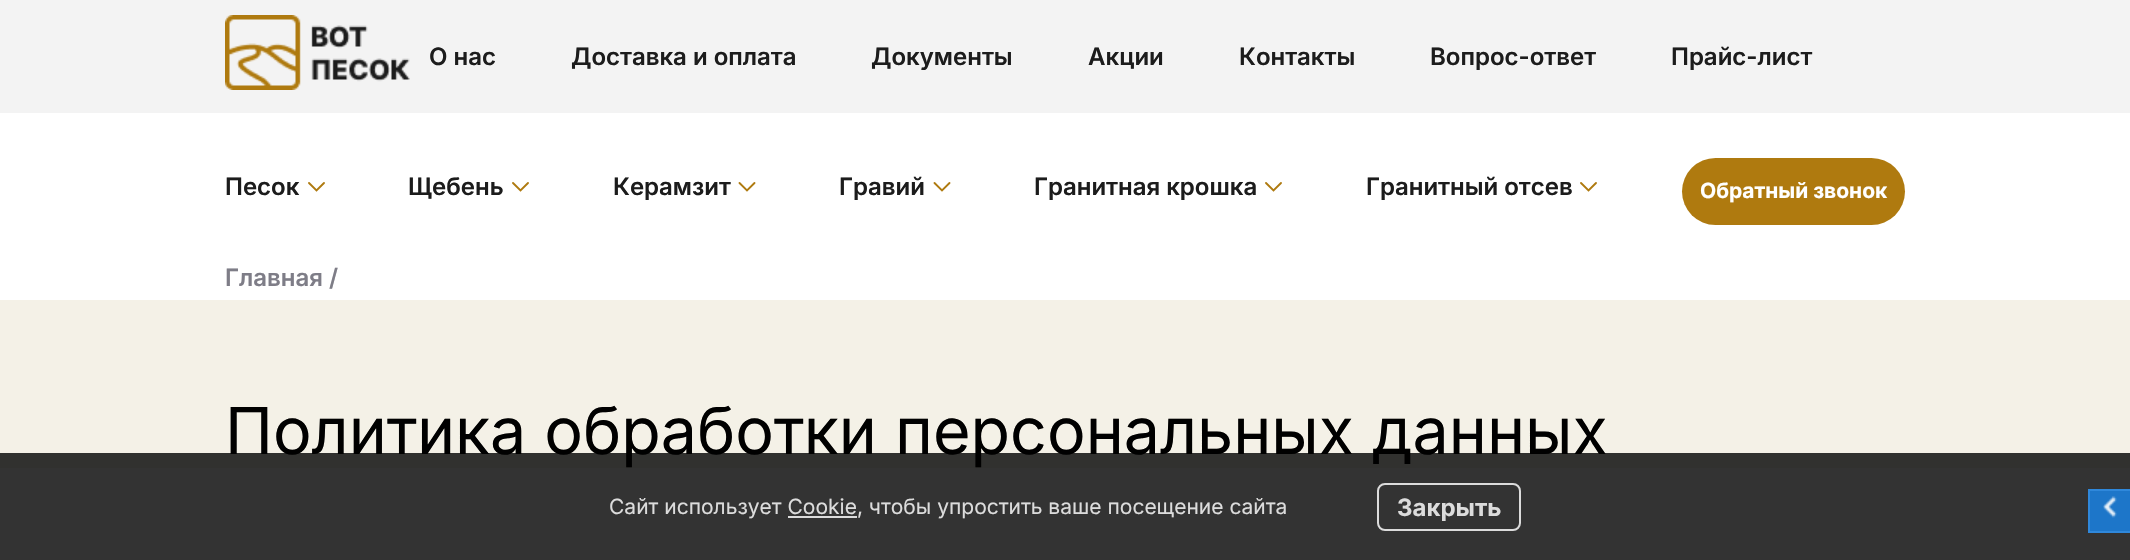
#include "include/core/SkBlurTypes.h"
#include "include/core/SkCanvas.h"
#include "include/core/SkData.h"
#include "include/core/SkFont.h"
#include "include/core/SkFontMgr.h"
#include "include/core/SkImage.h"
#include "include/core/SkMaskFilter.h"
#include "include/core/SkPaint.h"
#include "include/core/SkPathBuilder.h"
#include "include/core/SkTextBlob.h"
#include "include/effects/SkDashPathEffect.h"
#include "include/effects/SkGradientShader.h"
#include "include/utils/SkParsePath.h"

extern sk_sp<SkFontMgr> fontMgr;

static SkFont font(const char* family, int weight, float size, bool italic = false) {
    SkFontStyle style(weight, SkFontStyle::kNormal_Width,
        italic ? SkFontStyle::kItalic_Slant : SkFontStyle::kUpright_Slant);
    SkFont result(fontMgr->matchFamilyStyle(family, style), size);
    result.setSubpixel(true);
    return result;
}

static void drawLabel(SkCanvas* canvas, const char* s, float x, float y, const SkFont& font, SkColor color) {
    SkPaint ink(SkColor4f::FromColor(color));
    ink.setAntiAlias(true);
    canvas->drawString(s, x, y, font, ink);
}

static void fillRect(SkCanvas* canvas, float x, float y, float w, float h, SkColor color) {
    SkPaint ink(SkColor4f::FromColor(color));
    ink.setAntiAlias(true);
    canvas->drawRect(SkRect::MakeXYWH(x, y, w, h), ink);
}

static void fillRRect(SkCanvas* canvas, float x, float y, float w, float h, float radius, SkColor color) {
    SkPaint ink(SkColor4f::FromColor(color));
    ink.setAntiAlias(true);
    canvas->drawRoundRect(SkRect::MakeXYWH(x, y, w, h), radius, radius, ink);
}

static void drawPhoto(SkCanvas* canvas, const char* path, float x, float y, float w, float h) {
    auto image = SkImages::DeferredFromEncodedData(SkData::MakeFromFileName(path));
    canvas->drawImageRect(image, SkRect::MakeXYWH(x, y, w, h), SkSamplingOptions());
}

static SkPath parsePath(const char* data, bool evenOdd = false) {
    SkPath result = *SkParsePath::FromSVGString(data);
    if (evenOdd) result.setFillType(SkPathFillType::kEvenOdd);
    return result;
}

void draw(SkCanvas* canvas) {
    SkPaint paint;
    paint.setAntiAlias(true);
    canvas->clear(0xFFFFFFFF);
    fillRect(canvas, 0, 0, 2130, 113, 0xFFF3F3F3);
    drawPhoto(canvas, "assets/img1.png", 225, 15, 185, 75);
    SkFont font1 = font("Inter", 600, 24);
    drawLabel(canvas, "О нас", 429, 65, font1, 0xFF1C1C1C);
    drawLabel(canvas, "Доставка и оплата", 571, 65, font1, 0xFF1C1C1C);
    drawLabel(canvas, "Документы", 871, 65, font1, 0xFF1C1C1C);
    drawLabel(canvas, "Акции", 1088, 65, font1, 0xFF1C1C1C);
    drawLabel(canvas, "Контакты", 1239, 65, font1, 0xFF1C1C1C);
    drawLabel(canvas, "Вопрос-ответ", 1430, 65, font1, 0xFF1C1C1C);
    drawLabel(canvas, "Прайс-лист", 1671, 65, font1, 0xFF1C1C1C);
    drawLabel(canvas, "Песок", 225, 195, font1, 0xFF1C1C1C);
    paint.setStroke(true);
    paint.setStrokeWidth(1.9f);
    paint.setStrokeCap(SkPaint::kRound_Cap);
    paint.setColor(0xFFAF7A0F);
    canvas->drawPath(parsePath("M309 183L316.5 190.5L324 183"), paint);
    drawLabel(canvas, "Щебень", 408, 195, font1, 0xFF1C1C1C);
    canvas->drawPath(parsePath("M513 183L520.5 190.5L528 183"), paint);
    drawLabel(canvas, "Керамзит", 613, 195, font1, 0xFF1C1C1C);
    canvas->drawPath(parsePath("M739.5 183L747 190.5L754.5 183"), paint);
    drawLabel(canvas, "Гравий", 839, 195, font1, 0xFF1C1C1C);
    canvas->drawPath(parsePath("M934.5 183L942 190.5L949.5 183"), paint);
    drawLabel(canvas, "Гранитная крошка", 1034, 195, font1, 0xFF1C1C1C);
    canvas->drawPath(parsePath("M1266 183L1273.5 190.5L1281 183"), paint);
    drawLabel(canvas, "Гранитный отсев", 1366, 195, font1, 0xFF1C1C1C);
    canvas->drawPath(parsePath("M1581 183L1588.5 190.5L1596 183"), paint);
    fillRRect(canvas, 1682, 158, 223, 67, 33.5f, 0xFFAF7A0F);
    SkFont font2 = font("Inter", 700, 21);
    drawLabel(canvas, "Обратный звонок", 1700, 198, font2, 0xFFFFFFFF);
    drawLabel(canvas, "Главная /", 225, 286, font1, 0xFF7E7D87);
    fillRect(canvas, 0, 300, 2130, 168, 0xFFF4F1E7);
    SkFont font3 = font("Inter", 400, 64.5f);
    drawLabel(canvas, "Политика обработки персональных данных", 225, 454, font3, 0xFF000000);
    fillRect(canvas, 0, 453, 2130, 107, 0xCC000000);
    SkFont font4 = font("Inter", 400, 21);
    drawLabel(canvas, "Сайт использует Cookie, чтобы упростить ваше посещение сайта", 609, 514, font4, 0xFFDCDCDC);
    fillRect(canvas, 788, 516, 69, 2, 0xFFDCDCDC);
    paint.setStrokeWidth(2);
    paint.setStrokeCap(SkPaint::kButt_Cap);
    paint.setColor(0xFFDCDCDC);
    canvas->drawRoundRect(SkRect::MakeXYWH(1378, 484, 142, 46), 7, 7, paint);
    SkFont font5 = font("Inter", 700, 24);
    drawLabel(canvas, "Закрыть", 1397, 516, font5, 0xFFDCDCDC);
    fillRect(canvas, 2090, 491, 40, 40, 0xFF1D76C9);
    drawPhoto(canvas, "assets/img2.png", 2103, 496, 14, 22);
    fillRect(canvas, 2088, 489, 42, 2, 0xFF2F88DB);
    fillRect(canvas, 2088, 531, 42, 2, 0xFF2F88DB);
    fillRect(canvas, 2088, 489, 2, 44, 0xFF2F88DB);
}
